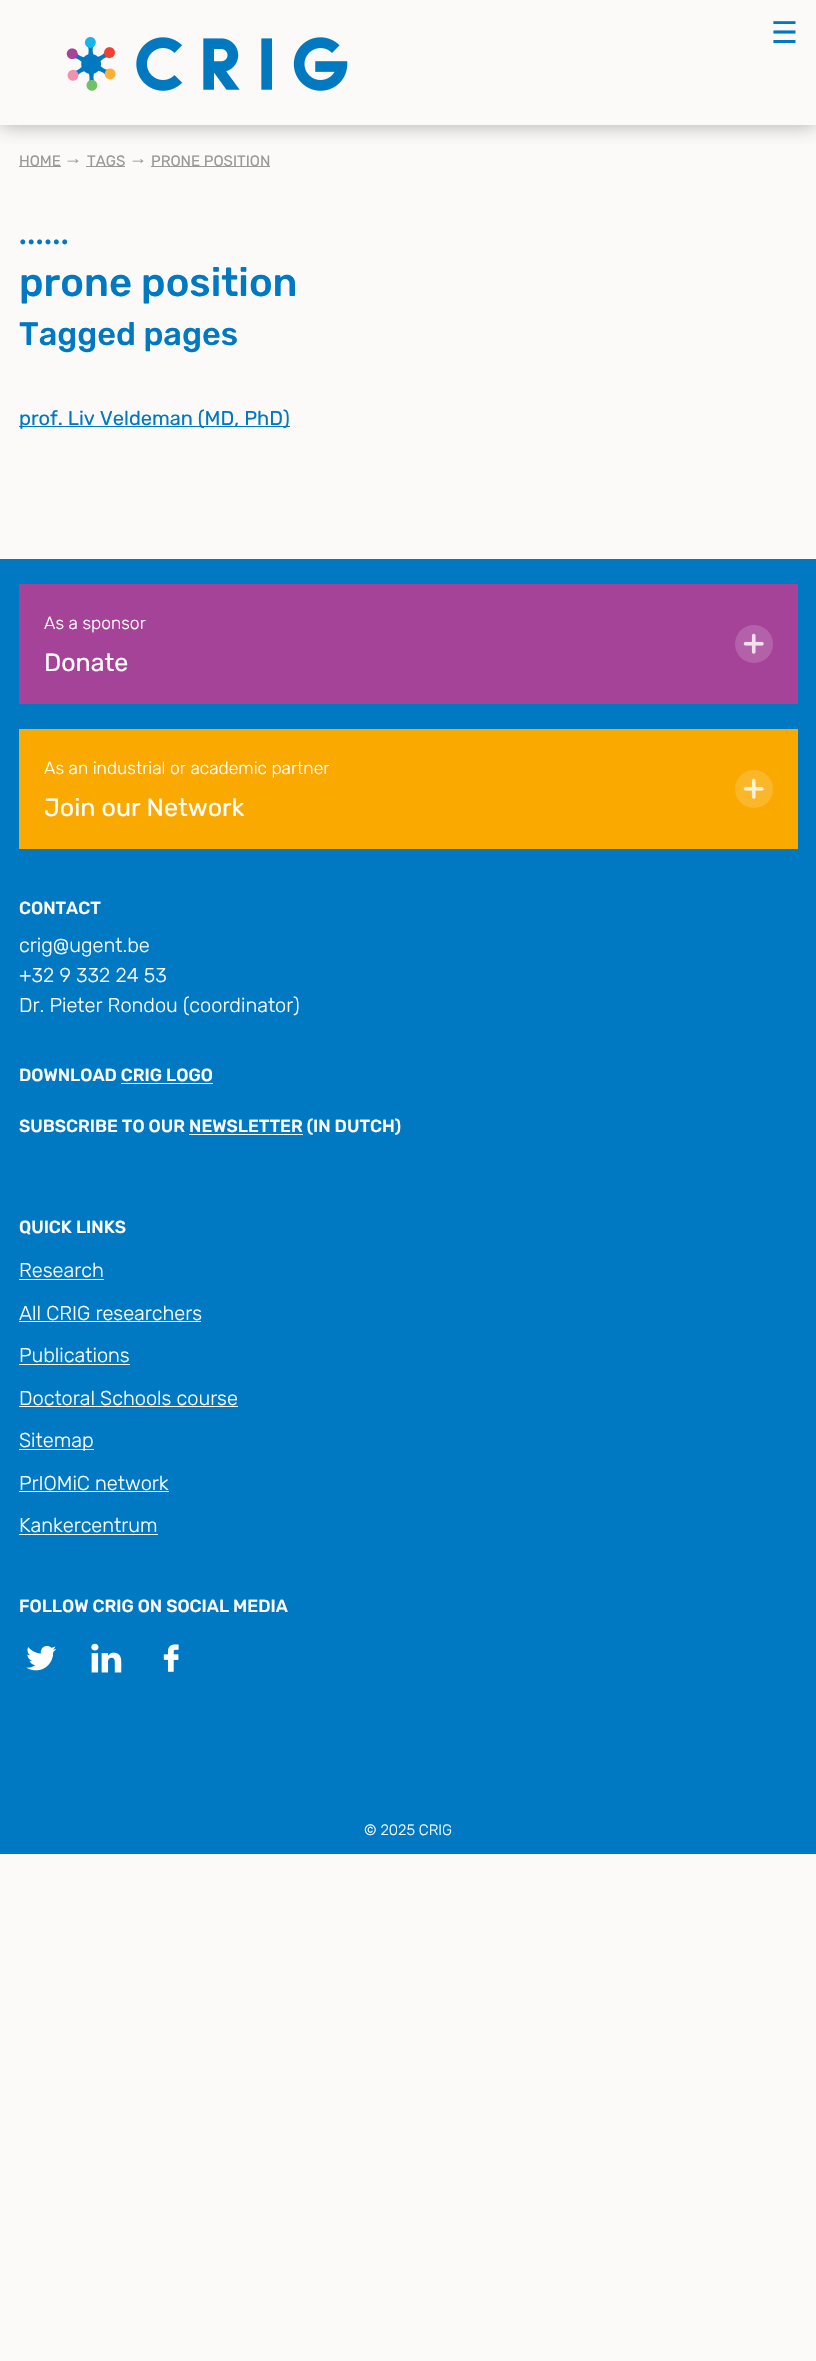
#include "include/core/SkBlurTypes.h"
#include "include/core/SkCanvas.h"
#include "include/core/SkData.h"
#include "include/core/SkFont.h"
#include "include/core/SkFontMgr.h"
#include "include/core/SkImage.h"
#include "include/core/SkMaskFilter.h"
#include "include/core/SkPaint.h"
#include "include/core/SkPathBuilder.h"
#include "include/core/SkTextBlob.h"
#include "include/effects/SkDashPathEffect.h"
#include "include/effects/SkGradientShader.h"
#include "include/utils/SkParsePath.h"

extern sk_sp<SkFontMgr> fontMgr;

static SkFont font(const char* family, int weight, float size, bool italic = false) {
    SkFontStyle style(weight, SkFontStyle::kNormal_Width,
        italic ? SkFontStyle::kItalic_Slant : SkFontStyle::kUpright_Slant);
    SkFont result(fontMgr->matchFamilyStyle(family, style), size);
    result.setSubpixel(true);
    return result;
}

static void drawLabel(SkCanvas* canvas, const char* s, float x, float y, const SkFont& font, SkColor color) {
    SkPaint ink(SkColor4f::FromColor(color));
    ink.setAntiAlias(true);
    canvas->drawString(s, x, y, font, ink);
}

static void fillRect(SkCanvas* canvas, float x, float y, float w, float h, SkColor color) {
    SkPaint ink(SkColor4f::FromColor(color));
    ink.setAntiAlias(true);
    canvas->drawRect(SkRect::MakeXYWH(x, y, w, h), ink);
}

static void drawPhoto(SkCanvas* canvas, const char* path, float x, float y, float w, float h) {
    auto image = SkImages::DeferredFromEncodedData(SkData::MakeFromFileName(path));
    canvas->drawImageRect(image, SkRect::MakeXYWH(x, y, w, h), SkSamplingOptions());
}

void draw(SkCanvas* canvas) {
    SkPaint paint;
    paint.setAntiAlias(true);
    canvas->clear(0xFFFBFAF8);
    canvas->save();
    canvas->clipRect(SkRect::MakeXYWH(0, 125, 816, 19));
    paint.setColor(0xFFAAAAAA);
    paint.setMaskFilter(SkMaskFilter::MakeBlur(kNormal_SkBlurStyle, 9.5f));
    canvas->drawRect(SkRect::MakeXYWH(0, 0, 816, 125), paint);
    paint.setMaskFilter(nullptr);
    canvas->restore();
    SkFont font1 = font("DejaVu Sans", 400, 30);
    drawLabel(canvas, "☰", 771, 43, font1, 0xFF0079C2);
    drawPhoto(canvas, "assets/img1.png", 66, 37, 282, 54);
    fillRect(canvas, 19, 166, 42, 1, 0xFF999999);
    SkFont font2 = font("Rubik", 400, 15);
    drawLabel(canvas, "HOME", 19, 166, font2, 0xFF999999);
    SkFont font3 = font("Liberation Sans", 400, 18);
    drawLabel(canvas, "→", 64, 164, font3, 0xFF999999);
    fillRect(canvas, 86, 166, 39, 1, 0xFF999999);
    drawLabel(canvas, "TAGS", 87, 166, font2, 0xFF999999);
    drawLabel(canvas, "→", 129, 164, font3, 0xFF999999);
    fillRect(canvas, 151, 166, 119, 1, 0xFF999999);
    drawLabel(canvas, "PRONE POSITION", 151, 166, font2, 0xFF999999);
    drawPhoto(canvas, "assets/img2.png", 20, 239, 48, 6);
    SkFont font4 = font("Rubik", 500, 40);
    drawLabel(canvas, "prone position", 19, 296, font4, 0xFF0079C2);
    SkFont font5 = font("Rubik", 500, 32.5f);
    drawLabel(canvas, "Tagged pages", 19, 345, font5, 0xFF0079C2);
    fillRect(canvas, 19, 426, 271, 1, 0xFF0079C2);
    SkFont font6 = font("Rubik", 400, 20);
    drawLabel(canvas, "prof. Liv Veldeman (MD, PhD)", 19, 425, font6, 0xFF0079C2);
    fillRect(canvas, 0, 559, 816, 1295, 0xFF0079C2);
    fillRect(canvas, 19, 584, 779, 120, 0xFFA54399);
    SkFont font7 = font("Rubik", 300, 17.5f);
    drawLabel(canvas, "As a sponsor", 44, 629, font7, 0xFFFFFFFF);
    SkFont font8 = font("Rubik", 400, 25);
    drawLabel(canvas, "Donate", 44, 671, font8, 0xFFFFFFFF);
    paint.setColor(0xFFB361A9);
    canvas->drawCircle(754, 644, 19, paint);
    drawPhoto(canvas, "assets/img3.png", 743, 633, 21, 21);
    fillRect(canvas, 19, 729, 779, 120, 0xFFFAA901);
    drawLabel(canvas, "As an industrial or academic partner", 44, 774, font7, 0xFFFFFFFF);
    drawLabel(canvas, "Join our Network", 44, 816, font8, 0xFFFFFFFF);
    paint.setColor(0xFFFBB72A);
    canvas->drawCircle(754, 789, 19, paint);
    drawPhoto(canvas, "assets/img4.png", 743, 778, 21, 21);
    SkFont font9 = font("Rubik", 500, 17.5f);
    drawLabel(canvas, "CONTACT", 19, 914, font9, 0xFFFFFFFF);
    SkFont font10 = font("Rubik", 300, 20);
    drawLabel(canvas, "crig@ugent.be", 19, 952, font10, 0xFFFFFFFF);
    drawLabel(canvas, "+32 9 332 24 53", 19, 982, font10, 0xFFFFFFFF);
    drawLabel(canvas, "Dr. Pieter Rondou (coordinator)", 19, 1012, font10, 0xFFFFFFFF);
    drawLabel(canvas, "DOWNLOAD CRIG LOGO", 19, 1081, font9, 0xFFFFFFFF);
    fillRect(canvas, 121, 1083, 92, 1, 0xFFFFFFFF);
    drawLabel(canvas, "SUBSCRIBE TO OUR NEWSLETTER (IN DUTCH)", 19, 1132, font9, 0xFFFFFFFF);
    fillRect(canvas, 189, 1134, 114, 1, 0xFFFFFFFF);
    drawLabel(canvas, "QUICK LINKS", 19, 1233, font9, 0xFFFFFFFF);
    drawLabel(canvas, "Research", 19, 1277, font10, 0xFFFFFFFF);
    fillRect(canvas, 19, 1279, 85, 1, 0xFFFFFFFF);
    drawLabel(canvas, "All CRIG researchers", 19, 1320, font10, 0xFFFFFFFF);
    fillRect(canvas, 19, 1321, 182, 1, 0xFFFFFFFF);
    drawLabel(canvas, "Publications", 19, 1362, font10, 0xFFFFFFFF);
    fillRect(canvas, 19, 1364, 111, 1, 0xFFFFFFFF);
    drawLabel(canvas, "Doctoral Schools course", 19, 1405, font10, 0xFFFFFFFF);
    fillRect(canvas, 19, 1406, 219, 1, 0xFFFFFFFF);
    fillRect(canvas, 19, 1449, 75, 1, 0xFFFFFFFF);
    drawLabel(canvas, "Sitemap", 19, 1447, font10, 0xFFFFFFFF);
    drawLabel(canvas, "PrIOMiC network", 19, 1490, font10, 0xFFFFFFFF);
    fillRect(canvas, 19, 1491, 150, 1, 0xFFFFFFFF);
    drawLabel(canvas, "Kankercentrum", 19, 1532, font10, 0xFFFFFFFF);
    fillRect(canvas, 19, 1534, 139, 1, 0xFFFFFFFF);
    drawLabel(canvas, "FOLLOW CRIG ON SOCIAL MEDIA", 19, 1612, font9, 0xFFFFFFFF);
    drawPhoto(canvas, "assets/img5.png", 26, 1645, 31, 26);
    drawPhoto(canvas, "assets/img6.png", 91, 1643, 31, 30);
    drawPhoto(canvas, "assets/img7.png", 163, 1644, 16, 28);
    SkFont font11 = font("Rubik", 300, 15);
    drawLabel(canvas, "© 2025 CRIG", 364, 1835, font11, 0xFFFFFFFF);
}
